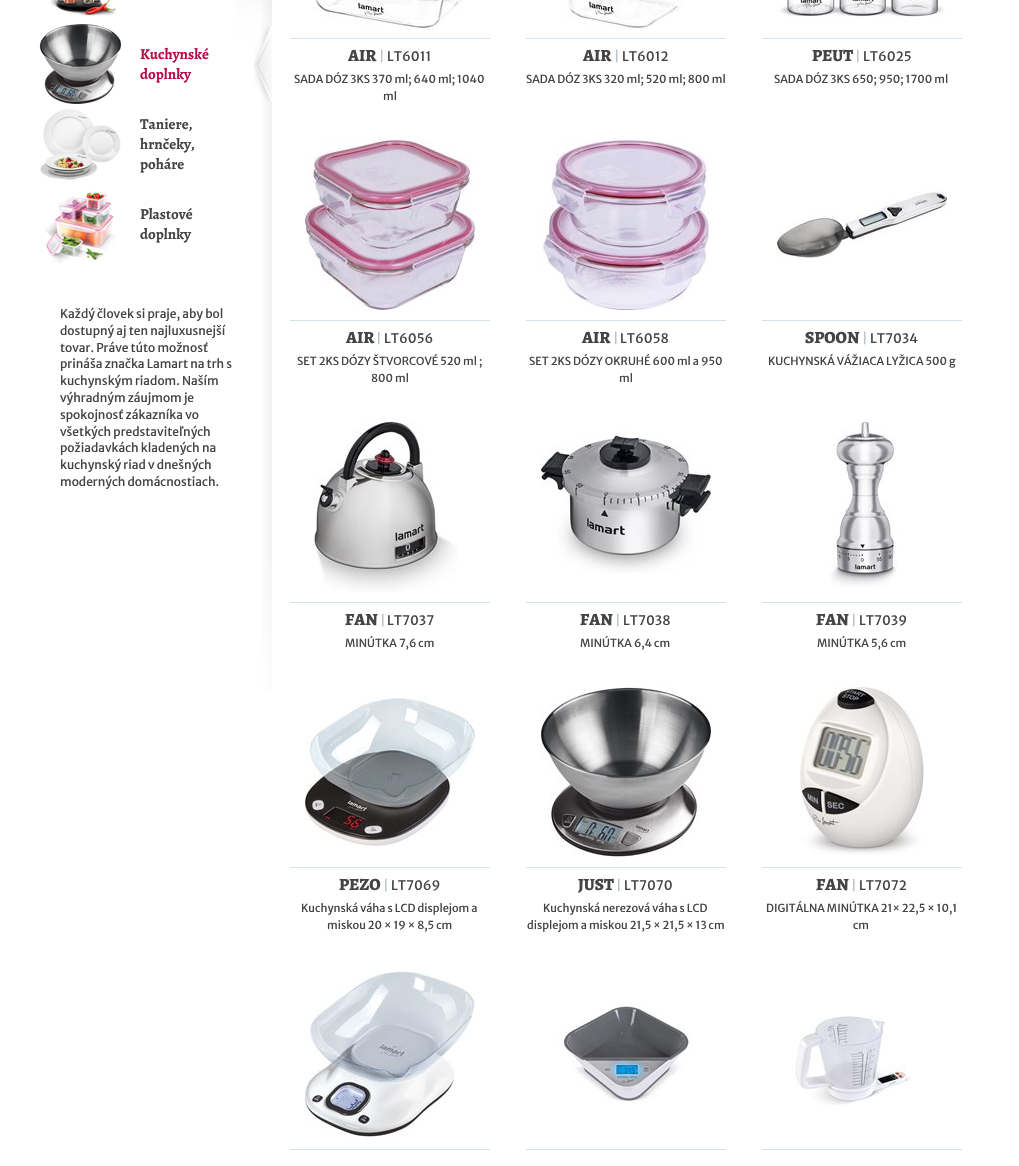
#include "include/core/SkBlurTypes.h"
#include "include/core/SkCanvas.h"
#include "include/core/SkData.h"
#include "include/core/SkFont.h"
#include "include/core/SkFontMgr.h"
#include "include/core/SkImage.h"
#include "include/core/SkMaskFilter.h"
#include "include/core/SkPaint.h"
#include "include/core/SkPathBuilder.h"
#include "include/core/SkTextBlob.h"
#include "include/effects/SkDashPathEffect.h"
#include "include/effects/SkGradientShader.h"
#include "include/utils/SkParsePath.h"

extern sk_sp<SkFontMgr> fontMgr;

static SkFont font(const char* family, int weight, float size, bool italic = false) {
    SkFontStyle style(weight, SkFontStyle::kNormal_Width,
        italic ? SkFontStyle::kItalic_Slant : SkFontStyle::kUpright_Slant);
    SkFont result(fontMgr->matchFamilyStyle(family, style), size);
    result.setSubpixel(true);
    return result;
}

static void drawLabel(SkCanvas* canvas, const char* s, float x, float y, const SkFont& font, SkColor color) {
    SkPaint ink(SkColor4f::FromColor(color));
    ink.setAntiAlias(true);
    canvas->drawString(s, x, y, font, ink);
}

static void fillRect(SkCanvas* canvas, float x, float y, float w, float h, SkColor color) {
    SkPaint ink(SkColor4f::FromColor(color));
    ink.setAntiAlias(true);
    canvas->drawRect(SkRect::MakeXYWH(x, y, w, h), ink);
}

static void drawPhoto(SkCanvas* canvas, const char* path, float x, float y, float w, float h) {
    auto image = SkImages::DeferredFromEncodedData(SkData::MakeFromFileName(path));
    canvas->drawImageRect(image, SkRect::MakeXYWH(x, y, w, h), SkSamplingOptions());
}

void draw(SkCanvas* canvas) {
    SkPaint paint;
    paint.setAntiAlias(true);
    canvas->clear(0xFFFFFFFF);
    drawPhoto(canvas, "assets/img1.png", 236, 0, 36, 37);
    drawPhoto(canvas, "assets/img2.png", 262, 0, 10, 690);
    drawPhoto(canvas, "assets/img3.png", 50, 0, 66, 16);
    drawPhoto(canvas, "assets/img4.png", 254, 25, 18, 78);
    drawPhoto(canvas, "assets/img5.png", 39, 24, 83, 80);
    SkFont font1 = font("Alegreya", 700, 15);
    drawLabel(canvas, "Kuchynské", 140, 59, font1, 0xFFBA0749);
    drawLabel(canvas, "doplnky", 140, 79, font1, 0xFFBA0749);
    drawPhoto(canvas, "assets/img6.png", 40, 109, 81, 71);
    drawLabel(canvas, "Taniere,", 140, 129, font1, 0xFF444444);
    drawLabel(canvas, "hrnčeky,", 140, 149, font1, 0xFF444444);
    drawLabel(canvas, "poháre", 140, 169, font1, 0xFF444444);
    drawPhoto(canvas, "assets/img7.png", 44, 191, 71, 72);
    drawLabel(canvas, "Plastové", 140, 219, font1, 0xFF444444);
    drawLabel(canvas, "doplnky", 140, 239, font1, 0xFF444444);
    SkFont font2 = font("Merriweather Sans", 400, 12);
    drawLabel(canvas, "Každý človek si praje, aby bol", 60, 318, font2, 0xFF444444);
    drawLabel(canvas, "dostupný aj ten najluxusnejší", 60, 335, font2, 0xFF444444);
    drawLabel(canvas, "tovar. Práve túto možnosť", 60, 352, font2, 0xFF444444);
    drawLabel(canvas, "prináša značka Lamart na trh s", 60, 368, font2, 0xFF444444);
    drawLabel(canvas, "kuchynským riadom. Naším", 60, 385, font2, 0xFF444444);
    drawLabel(canvas, "výhradným záujmom je", 60, 402, font2, 0xFF444444);
    drawLabel(canvas, "spokojnosť zákazníka vo", 60, 419, font2, 0xFF444444);
    drawLabel(canvas, "všetkých predstaviteľných", 60, 436, font2, 0xFF444444);
    drawLabel(canvas, "požiadavkách kladených na", 60, 452, font2, 0xFF444444);
    drawLabel(canvas, "kuchynský riad v dnešných", 60, 469, font2, 0xFF444444);
    drawLabel(canvas, "moderných domácnostiach.", 60, 486, font2, 0xFF444444);
    drawPhoto(canvas, "assets/img8.png", 314, 0, 150, 28);
    fillRect(canvas, 290, 38, 200, 1, 0xFFD5E2EA);
    SkFont font3 = font("Alegreya", 800, 17);
    drawLabel(canvas, "AIR", 348, 61, font3, 0xFF444444);
    SkFont font4 = font("Merriweather Sans", 400, 13);
    drawLabel(canvas, "|", 379, 61, font4, 0xFFB9C4CA);
    drawLabel(canvas, "LT6011", 387, 61, font4, 0xFF444444);
    SkFont font5 = font("Merriweather Sans", 400, 11);
    drawLabel(canvas, "SADA DÓZ 3KS 370 ml; 640 ml; 1040", 294, 83, font5, 0xFF444444);
    drawLabel(canvas, "ml", 383, 100, font5, 0xFF444444);
    drawPhoto(canvas, "assets/img9.png", 566, 0, 117, 28);
    fillRect(canvas, 526, 38, 200, 1, 0xFFD5E2EA);
    drawLabel(canvas, "AIR", 583, 61, font3, 0xFF444444);
    drawLabel(canvas, "|", 614, 61, font4, 0xFFB9C4CA);
    drawLabel(canvas, "LT6012", 622, 61, font4, 0xFF444444);
    drawLabel(canvas, "SADA DÓZ 3KS 320 ml; 520 ml; 800 ml", 526, 83, font5, 0xFF444444);
    drawPhoto(canvas, "assets/img10.png", 779, 0, 166, 18);
    fillRect(canvas, 762, 38, 200, 1, 0xFFD5E2EA);
    drawLabel(canvas, "PEUT", 812, 61, font3, 0xFF444444);
    drawLabel(canvas, "|", 855, 61, font4, 0xFFB9C4CA);
    drawLabel(canvas, "LT6025", 863, 61, font4, 0xFF444444);
    drawLabel(canvas, "SADA DÓZ 3KS 650; 950; 1700 ml", 774, 83, font5, 0xFF444444);
    drawPhoto(canvas, "assets/img11.png", 305, 140, 170, 170);
    fillRect(canvas, 290, 320, 200, 1, 0xFFD5E2EA);
    drawLabel(canvas, "AIR", 346, 343, font3, 0xFF444444);
    drawLabel(canvas, "|", 376, 343, font4, 0xFFB9C4CA);
    drawLabel(canvas, "LT6056", 384, 343, font4, 0xFF444444);
    drawLabel(canvas, "SET 2KS DÓZY ŠTVORCOVÉ 520 ml ;", 297, 365, font5, 0xFF444444);
    drawLabel(canvas, "800 ml", 371, 382, font5, 0xFF444444);
    drawPhoto(canvas, "assets/img12.png", 541, 140, 168, 170);
    fillRect(canvas, 526, 320, 200, 1, 0xFFD5E2EA);
    drawLabel(canvas, "AIR", 582, 343, font3, 0xFF444444);
    drawLabel(canvas, "|", 613, 343, font4, 0xFFB9C4CA);
    drawLabel(canvas, "LT6058", 620, 343, font4, 0xFF444444);
    drawLabel(canvas, "SET 2KS DÓZY OKRUHÉ 600 ml a 950", 529, 365, font5, 0xFF444444);
    drawLabel(canvas, "ml", 619, 382, font5, 0xFF444444);
    drawPhoto(canvas, "assets/img13.png", 777, 189, 170, 70);
    fillRect(canvas, 762, 320, 200, 1, 0xFFD5E2EA);
    drawLabel(canvas, "SPOON", 805, 343, font3, 0xFF444444);
    drawLabel(canvas, "|", 862, 343, font4, 0xFFB9C4CA);
    drawLabel(canvas, "LT7034", 870, 343, font4, 0xFF444444);
    drawLabel(canvas, "KUCHYNSKÁ VÁŽIACA LYŽICA 500 g", 768, 365, font5, 0xFF444444);
    drawPhoto(canvas, "assets/img14.png", 314, 422, 143, 170);
    fillRect(canvas, 290, 602, 200, 1, 0xFFD5E2EA);
    drawLabel(canvas, "FAN", 345, 625, font3, 0xFF444444);
    drawLabel(canvas, "|", 380, 625, font4, 0xFFB9C4CA);
    drawLabel(canvas, "LT7037", 387, 625, font4, 0xFF444444);
    drawLabel(canvas, "MINÚTKA 7,6 cm", 345, 647, font5, 0xFF444444);
    drawPhoto(canvas, "assets/img15.png", 541, 430, 170, 143);
    fillRect(canvas, 526, 602, 200, 1, 0xFFD5E2EA);
    drawLabel(canvas, "FAN", 580, 625, font3, 0xFF444444);
    drawLabel(canvas, "|", 615, 625, font4, 0xFFB9C4CA);
    drawLabel(canvas, "LT7038", 623, 625, font4, 0xFF444444);
    drawLabel(canvas, "MINÚTKA 6,4 cm", 580, 647, font5, 0xFF444444);
    drawPhoto(canvas, "assets/img16.png", 830, 422, 67, 165);
    fillRect(canvas, 762, 602, 200, 1, 0xFFD5E2EA);
    drawLabel(canvas, "FAN", 816, 625, font3, 0xFF444444);
    drawLabel(canvas, "|", 851, 625, font4, 0xFFB9C4CA);
    drawLabel(canvas, "LT7039", 859, 625, font4, 0xFF444444);
    drawLabel(canvas, "MINÚTKA 5,6 cm", 817, 647, font5, 0xFF444444);
    drawPhoto(canvas, "assets/img17.png", 305, 697, 170, 149);
    fillRect(canvas, 290, 867, 200, 1, 0xFFD5E2EA);
    drawLabel(canvas, "PEZO", 339, 890, font3, 0xFF444444);
    drawLabel(canvas, "|", 383, 890, font4, 0xFFB9C4CA);
    drawLabel(canvas, "LT7069", 391, 890, font4, 0xFF444444);
    drawLabel(canvas, "Kuchynská váha s LCD displejom a", 301, 912, font5, 0xFF444444);
    drawLabel(canvas, "miskou 20 × 19 × 8,5 cm", 327, 929, font5, 0xFF444444);
    drawPhoto(canvas, "assets/img18.png", 541, 687, 170, 170);
    fillRect(canvas, 526, 867, 200, 1, 0xFFD5E2EA);
    drawLabel(canvas, "JUST", 578, 890, font3, 0xFF444444);
    drawLabel(canvas, "|", 616, 890, font4, 0xFFB9C4CA);
    drawLabel(canvas, "LT7070", 624, 890, font4, 0xFF444444);
    drawLabel(canvas, "Kuchynská nerezová váha s LCD", 543, 912, font5, 0xFF444444);
    drawLabel(canvas, "displejom a miskou 21,5 × 21,5 × 13 cm", 527, 929, font5, 0xFF444444);
    drawPhoto(canvas, "assets/img19.png", 800, 687, 125, 168);
    fillRect(canvas, 762, 867, 200, 1, 0xFFD5E2EA);
    drawLabel(canvas, "FAN", 816, 890, font3, 0xFF444444);
    drawLabel(canvas, "|", 851, 890, font4, 0xFFB9C4CA);
    drawLabel(canvas, "LT7072", 859, 890, font4, 0xFF444444);
    drawLabel(canvas, "DIGITÁLNA MINÚTKA 21× 22,5 × 10,1", 766, 912, font5, 0xFF444444);
    drawLabel(canvas, "cm", 853, 929, font5, 0xFF444444);
    drawPhoto(canvas, "assets/img20.png", 305, 970, 170, 167);
    fillRect(canvas, 290, 1149, 200, 1, 0xFFD5E2EA);
    drawPhoto(canvas, "assets/img21.png", 558, 1002, 134, 102);
    fillRect(canvas, 526, 1149, 200, 1, 0xFFD5E2EA);
    drawPhoto(canvas, "assets/img22.png", 795, 1016, 116, 89);
    fillRect(canvas, 762, 1149, 200, 1, 0xFFD5E2EA);
}
